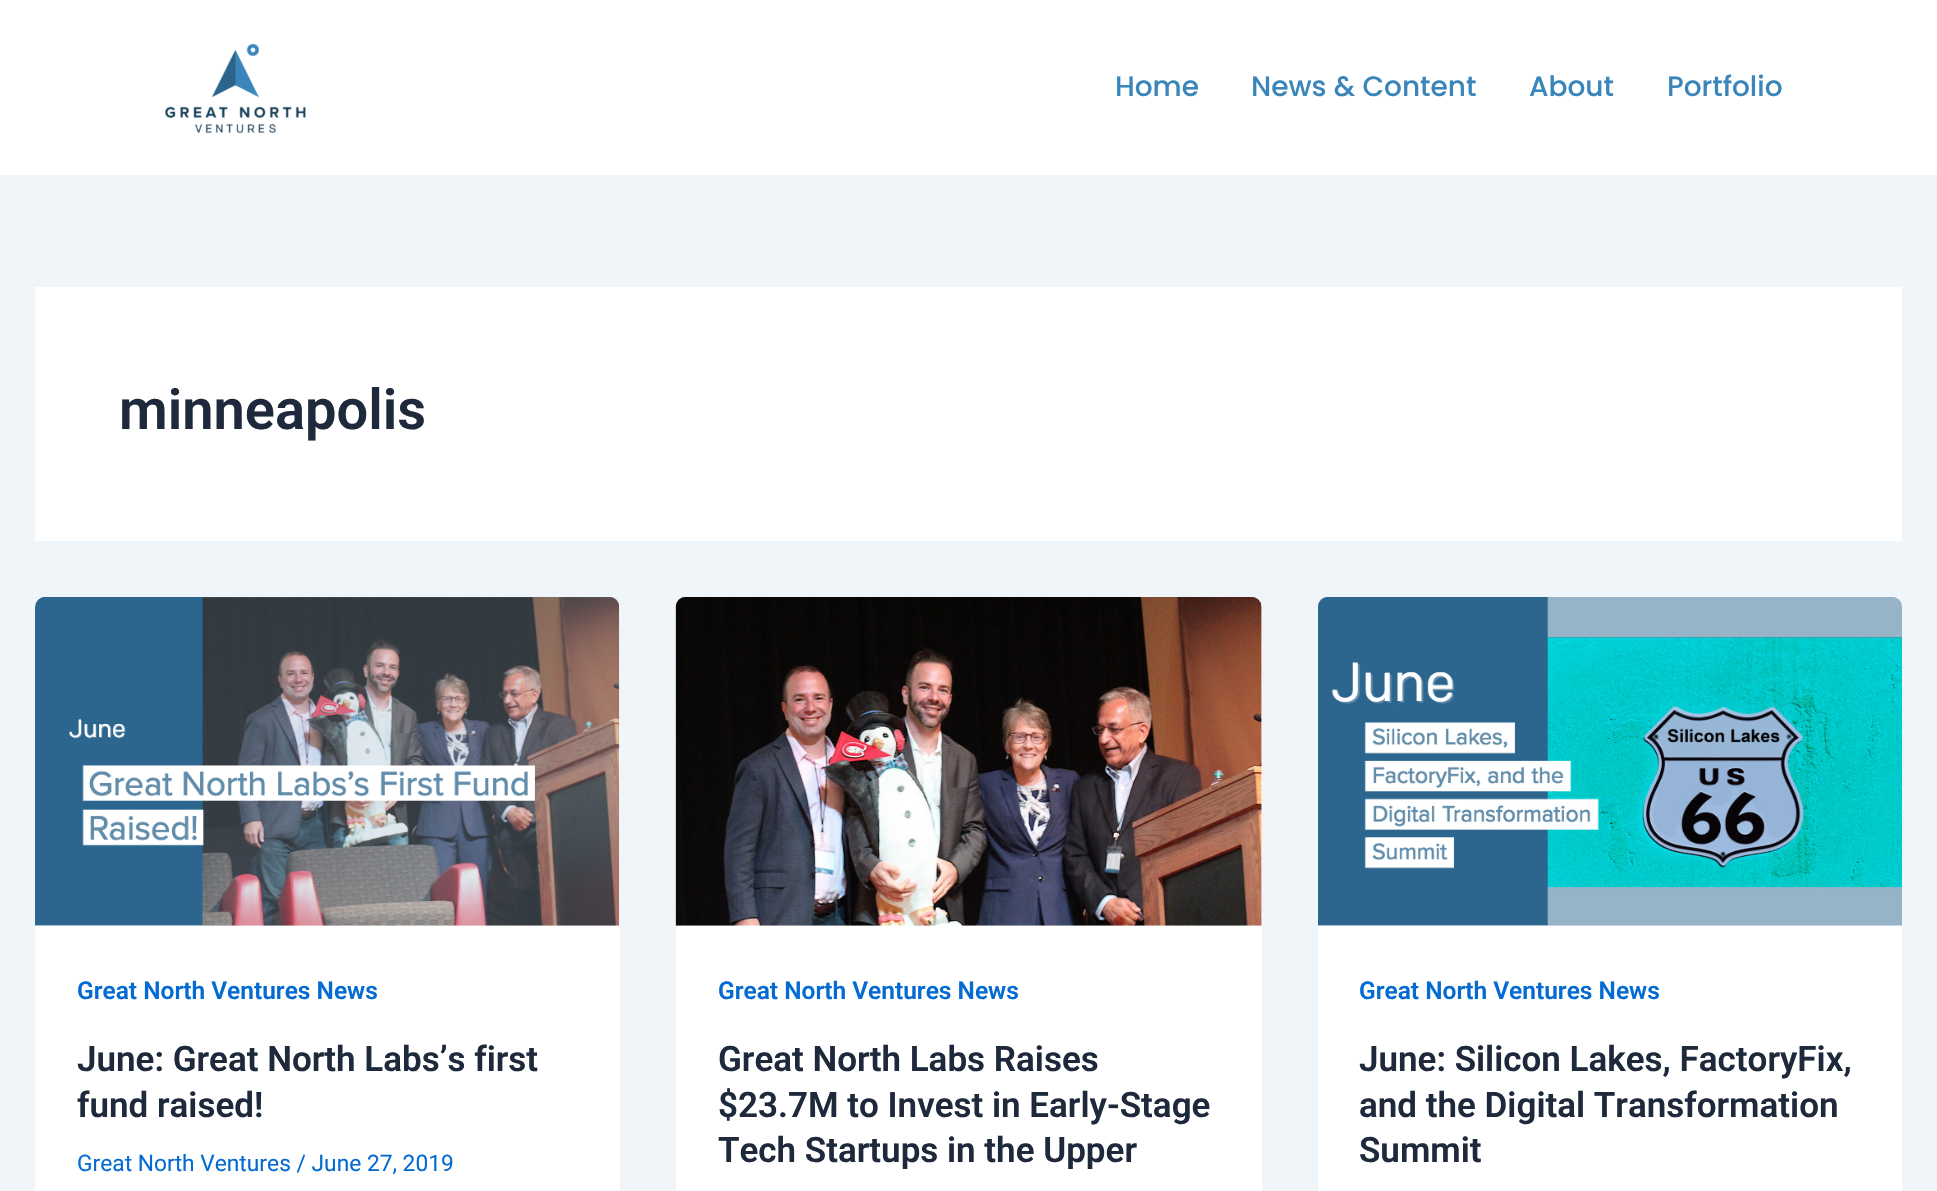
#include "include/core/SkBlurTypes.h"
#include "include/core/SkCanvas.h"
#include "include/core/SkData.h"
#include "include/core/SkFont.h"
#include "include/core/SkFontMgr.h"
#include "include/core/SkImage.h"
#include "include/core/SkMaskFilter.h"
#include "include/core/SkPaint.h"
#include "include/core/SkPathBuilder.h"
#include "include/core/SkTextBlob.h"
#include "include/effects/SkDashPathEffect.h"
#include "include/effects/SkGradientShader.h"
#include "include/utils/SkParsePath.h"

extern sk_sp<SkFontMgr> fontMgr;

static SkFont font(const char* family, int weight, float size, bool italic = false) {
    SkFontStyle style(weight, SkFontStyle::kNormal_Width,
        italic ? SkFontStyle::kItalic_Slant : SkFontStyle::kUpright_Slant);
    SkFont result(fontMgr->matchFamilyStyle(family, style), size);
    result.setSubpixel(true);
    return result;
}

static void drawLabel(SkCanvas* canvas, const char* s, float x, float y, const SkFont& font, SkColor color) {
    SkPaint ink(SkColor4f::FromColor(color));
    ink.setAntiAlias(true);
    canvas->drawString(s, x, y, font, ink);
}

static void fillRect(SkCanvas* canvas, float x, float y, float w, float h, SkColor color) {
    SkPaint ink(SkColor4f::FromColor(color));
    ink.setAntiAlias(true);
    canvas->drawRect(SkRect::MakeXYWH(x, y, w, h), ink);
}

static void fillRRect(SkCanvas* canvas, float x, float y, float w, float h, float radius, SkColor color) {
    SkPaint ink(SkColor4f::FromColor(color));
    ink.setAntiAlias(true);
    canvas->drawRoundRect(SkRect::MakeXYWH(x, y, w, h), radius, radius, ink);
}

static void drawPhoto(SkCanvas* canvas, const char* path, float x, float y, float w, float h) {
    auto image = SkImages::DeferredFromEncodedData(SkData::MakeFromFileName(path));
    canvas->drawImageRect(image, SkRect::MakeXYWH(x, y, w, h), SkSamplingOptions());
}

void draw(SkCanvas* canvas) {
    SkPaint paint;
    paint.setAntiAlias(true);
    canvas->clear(0xFFF0F5FA);
    fillRect(canvas, 0, 0, 1937, 175, 0xFFFFFFFF);
    drawPhoto(canvas, "assets/img1.png", 165, 43, 141, 90);
    SkFont font1 = font("Poppins", 500, 28);
    drawLabel(canvas, "Home", 1115, 96, font1, 0xFF3A85B9);
    drawLabel(canvas, "News & Content", 1251, 96, font1, 0xFF3A85B9);
    drawLabel(canvas, "About", 1529, 96, font1, 0xFF3A85B9);
    drawLabel(canvas, "Portfolio", 1667, 96, font1, 0xFF3A85B9);
    fillRect(canvas, 35, 287, 1867, 254, 0xFFFFFFFF);
    SkFont font2 = font("Roboto", 600, 56);
    drawLabel(canvas, "minneapolis", 119, 429, font2, 0xFF1E293B);
    fillRRect(canvas, 35, 597, 585, 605, 11, 0xFFFFFFFF);
    drawPhoto(canvas, "assets/img2.png", 35, 597, 585, 329);
    SkFont font3 = font("Roboto", 600, 24.5f);
    drawLabel(canvas, "Great North Ventures News", 77, 999, font3, 0xFF046BD2);
    SkFont font4 = font("Roboto", 600, 35);
    drawLabel(canvas, "June: Great North Labs’s first", 77, 1071, font4, 0xFF1E293B);
    drawLabel(canvas, "fund raised!", 77, 1117, font4, 0xFF1E293B);
    SkFont font5 = font("Roboto", 400, 22.75f);
    drawLabel(canvas, "Great North Ventures / June 27, 2019", 77, 1171, font5, 0xFF046BD2);
    fillRRect(canvas, 676, 597, 586, 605, 11, 0xFFFFFFFF);
    drawPhoto(canvas, "assets/img3.png", 675, 597, 587, 329);
    drawLabel(canvas, "Great North Ventures News", 718, 999, font3, 0xFF046BD2);
    drawLabel(canvas, "Great North Labs Raises", 718, 1071, font4, 0xFF1E293B);
    drawLabel(canvas, "$23.7M to Invest in Early-Stage", 718, 1117, font4, 0xFF1E293B);
    drawLabel(canvas, "Tech Startups in the Upper", 718, 1162, font4, 0xFF1E293B);
    fillRRect(canvas, 1318, 597, 584, 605, 11, 0xFFFFFFFF);
    drawPhoto(canvas, "assets/img4.png", 1318, 597, 584, 329);
    drawLabel(canvas, "Great North Ventures News", 1359, 999, font3, 0xFF046BD2);
    drawLabel(canvas, "June: Silicon Lakes, FactoryFix,", 1359, 1071, font4, 0xFF1E293B);
    drawLabel(canvas, "and the Digital Transformation", 1359, 1117, font4, 0xFF1E293B);
    drawLabel(canvas, "Summit", 1359, 1162, font4, 0xFF1E293B);
}
